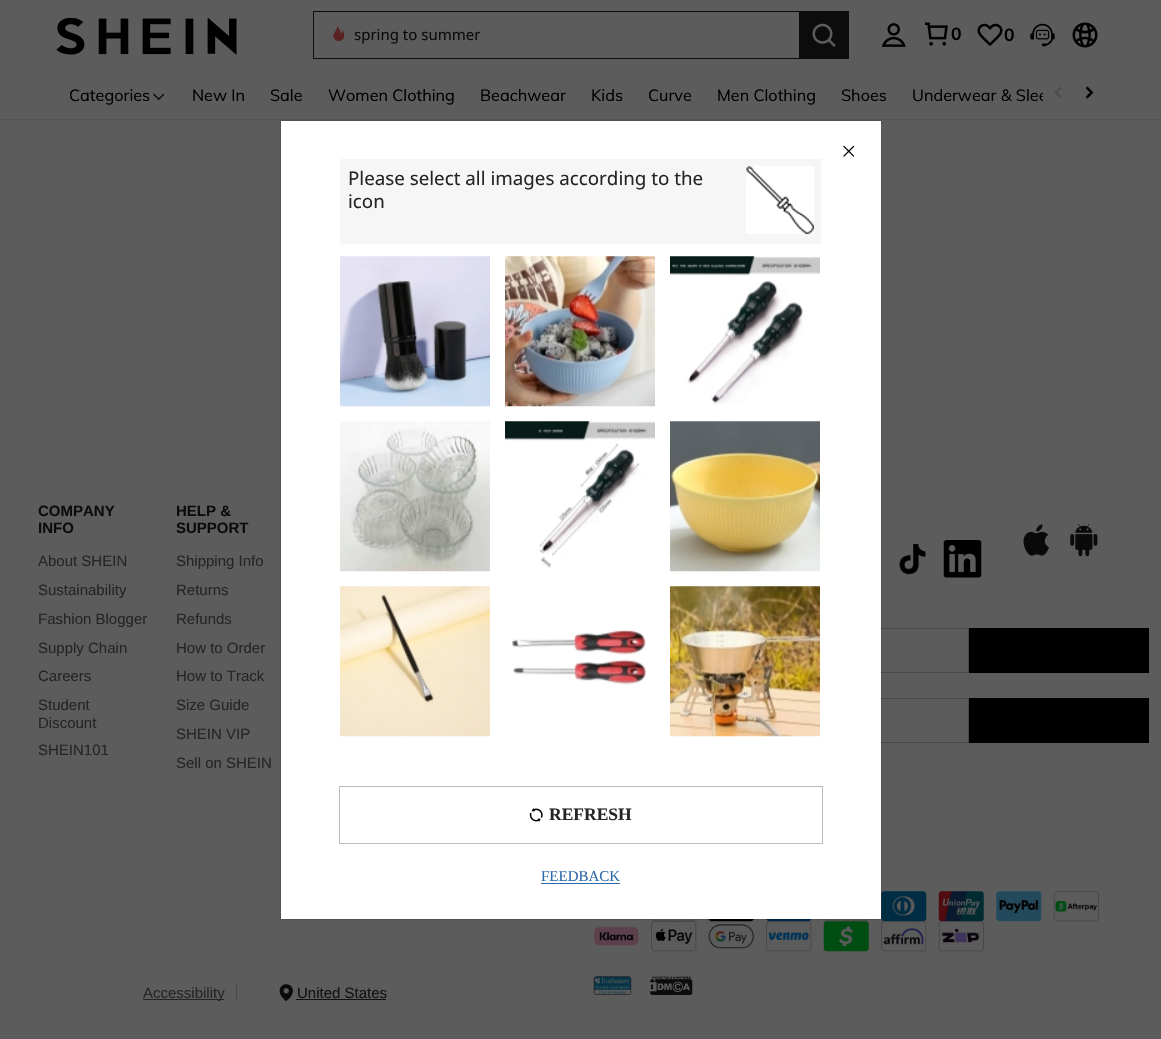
#include "include/core/SkBlurTypes.h"
#include "include/core/SkCanvas.h"
#include "include/core/SkData.h"
#include "include/core/SkFont.h"
#include "include/core/SkFontMgr.h"
#include "include/core/SkImage.h"
#include "include/core/SkMaskFilter.h"
#include "include/core/SkPaint.h"
#include "include/core/SkPathBuilder.h"
#include "include/core/SkTextBlob.h"
#include "include/effects/SkDashPathEffect.h"
#include "include/effects/SkGradientShader.h"
#include "include/utils/SkParsePath.h"

extern sk_sp<SkFontMgr> fontMgr;

static SkFont font(const char* family, int weight, float size, bool italic = false) {
    SkFontStyle style(weight, SkFontStyle::kNormal_Width,
        italic ? SkFontStyle::kItalic_Slant : SkFontStyle::kUpright_Slant);
    SkFont result(fontMgr->matchFamilyStyle(family, style), size);
    result.setSubpixel(true);
    return result;
}

static void drawLabel(SkCanvas* canvas, const char* s, float x, float y, const SkFont& font, SkColor color) {
    SkPaint ink(SkColor4f::FromColor(color));
    ink.setAntiAlias(true);
    canvas->drawString(s, x, y, font, ink);
}

static void fillRect(SkCanvas* canvas, float x, float y, float w, float h, SkColor color) {
    SkPaint ink(SkColor4f::FromColor(color));
    ink.setAntiAlias(true);
    canvas->drawRect(SkRect::MakeXYWH(x, y, w, h), ink);
}

static void drawPhoto(SkCanvas* canvas, const char* path, float x, float y, float w, float h) {
    auto image = SkImages::DeferredFromEncodedData(SkData::MakeFromFileName(path));
    canvas->drawImageRect(image, SkRect::MakeXYWH(x, y, w, h), SkSamplingOptions());
}

void draw(SkCanvas* canvas) {
    SkPaint paint;
    paint.setAntiAlias(true);
    canvas->clear(0xFF5C5C5C);
    drawPhoto(canvas, "assets/img1.png", 56, 18, 181, 37);
    fillRect(canvas, 313, 11, 486, 1, 0xFF0C0C0C);
    fillRect(canvas, 313, 58, 486, 1, 0xFF0C0C0C);
    fillRect(canvas, 313, 11, 1, 48, 0xFF0C0C0C);
    drawPhoto(canvas, "assets/img2.png", 333, 26, 12, 16);
    SkFont font1 = font("Noto Sans", 400, 15);
    drawLabel(canvas, "spring to summer", 354, 40, font1, 0xFF0C0C0C);
    fillRect(canvas, 799, 11, 50, 48, 0xFF0C0C0C);
    drawPhoto(canvas, "assets/img3.png", 812, 23, 24, 24);
    drawPhoto(canvas, "assets/img4.png", 881, 23, 25, 24);
    drawPhoto(canvas, "assets/img5.png", 925, 22, 23, 24);
    SkFont font2 = font("Muli", 700, 17.5f);
    drawLabel(canvas, "0", 951, 40, font2, 0xFF000000);
    drawPhoto(canvas, "assets/img6.png", 977, 23, 26, 23);
    drawLabel(canvas, "0", 1004, 41, font2, 0xFF000000);
    drawPhoto(canvas, "assets/img7.png", 1030, 23, 25, 24);
    drawPhoto(canvas, "assets/img8.png", 1072, 22, 26, 26);
    fillRect(canvas, 0, 119, 1161, 1, 0xFF525252);
    SkFont font3 = font("Muli", 400, 16.25f);
    drawLabel(canvas, "Categories", 69, 101, font3, 0xFF000000);
    drawPhoto(canvas, "assets/img9.png", 153, 93, 12, 7);
    drawLabel(canvas, "New In", 192, 101, font3, 0xFF000000);
    drawLabel(canvas, "Sale", 270, 101, font3, 0xFF000000);
    drawLabel(canvas, "Women Clothing", 328, 101, font3, 0xFF000000);
    drawLabel(canvas, "Beachwear", 480, 101, font3, 0xFF000000);
    drawLabel(canvas, "Kids", 591, 101, font3, 0xFF000000);
    drawLabel(canvas, "Curve", 648, 101, font3, 0xFF000000);
    drawLabel(canvas, "Men Clothing", 717, 101, font3, 0xFF000000);
    drawLabel(canvas, "Shoes", 841, 101, font3, 0xFF000000);
    drawLabel(canvas, "Underwear & Slee", 912, 101, font3, 0xFF000000);
    fillRect(canvas, 1043, 92, 4, 10, 0xFF5C5C5C);
    drawPhoto(canvas, "assets/img10.png", 1054, 86, 8, 13);
    drawPhoto(canvas, "assets/img11.png", 1085, 86, 9, 13);
    SkFont font4 = font("Liberation Sans", 700, 15);
    drawLabel(canvas, "COMPANY", 38, 516, font4, 0xFF0C0C0C);
    drawLabel(canvas, "INFO", 38, 533, font4, 0xFF0C0C0C);
    SkFont font5 = font("Liberation Sans", 400, 15);
    drawLabel(canvas, "About SHEIN", 38, 566, font5, 0xFF252525);
    drawLabel(canvas, "Sustainability", 38, 595, font5, 0xFF252525);
    drawLabel(canvas, "Fashion Blogger", 38, 624, font5, 0xFF252525);
    drawLabel(canvas, "Supply Chain", 38, 653, font5, 0xFF252525);
    drawLabel(canvas, "Careers", 38, 681, font5, 0xFF252525);
    drawLabel(canvas, "Student", 38, 710, font5, 0xFF252525);
    drawLabel(canvas, "Discount", 38, 728, font5, 0xFF252525);
    drawLabel(canvas, "SHEIN101", 38, 755, font5, 0xFF252525);
    drawLabel(canvas, "HELP &", 176, 516, font4, 0xFF0C0C0C);
    drawLabel(canvas, "SUPPORT", 176, 533, font4, 0xFF0C0C0C);
    drawLabel(canvas, "Shipping Info", 176, 566, font5, 0xFF252525);
    drawLabel(canvas, "Returns", 176, 595, font5, 0xFF252525);
    drawLabel(canvas, "Refunds", 176, 624, font5, 0xFF252525);
    drawLabel(canvas, "How to Order", 176, 653, font5, 0xFF252525);
    drawLabel(canvas, "How to Track", 176, 681, font5, 0xFF252525);
    drawLabel(canvas, "Size Guide", 176, 710, font5, 0xFF252525);
    drawLabel(canvas, "SHEIN VIP", 176, 739, font5, 0xFF252525);
    drawLabel(canvas, "Sell on SHEIN", 176, 768, font5, 0xFF252525);
    drawPhoto(canvas, "assets/img12.png", 899, 544, 27, 31);
    drawPhoto(canvas, "assets/img13.png", 943, 540, 39, 38);
    drawPhoto(canvas, "assets/img14.png", 1023, 524, 26, 32);
    drawPhoto(canvas, "assets/img15.png", 1070, 523, 28, 34);
    paint.setStroke(true);
    paint.setStrokeWidth(1);
    paint.setColor(0xFF494949);
    canvas->drawRect(SkRect::MakeXYWH(594.5f, 628.5f, 374, 44), paint);
    fillRect(canvas, 969, 628, 180, 45, 0xFF000000);
    canvas->drawRect(SkRect::MakeXYWH(694.5f, 698.5f, 274, 44), paint);
    fillRect(canvas, 969, 698, 180, 45, 0xFF000000);
    drawPhoto(canvas, "assets/img16.png", 594, 919, 45, 2);
    drawPhoto(canvas, "assets/img17.png", 651, 919, 46, 3);
    drawPhoto(canvas, "assets/img18.png", 708, 919, 46, 3);
    drawPhoto(canvas, "assets/img19.png", 766, 919, 46, 3);
    drawPhoto(canvas, "assets/img20.png", 823, 919, 46, 3);
    drawPhoto(canvas, "assets/img21.png", 881, 891, 46, 31);
    drawPhoto(canvas, "assets/img22.png", 938, 891, 46, 31);
    drawPhoto(canvas, "assets/img23.png", 996, 891, 46, 31);
    drawPhoto(canvas, "assets/img24.png", 1053, 891, 46, 31);
    drawPhoto(canvas, "assets/img25.png", 593, 926, 46, 20);
    drawPhoto(canvas, "assets/img26.png", 651, 921, 46, 31);
    drawPhoto(canvas, "assets/img27.png", 708, 924, 46, 25);
    drawPhoto(canvas, "assets/img28.png", 766, 921, 46, 31);
    drawPhoto(canvas, "assets/img29.png", 823, 921, 46, 31);
    drawPhoto(canvas, "assets/img30.png", 881, 921, 46, 31);
    drawPhoto(canvas, "assets/img31.png", 938, 921, 46, 31);
    fillRect(canvas, 236, 984, 1, 17, 0xFF494949);
    fillRect(canvas, 143, 999, 81, 1, 0xFF252525);
    drawLabel(canvas, "Accessibility", 143, 998, font5, 0xFF252525);
    drawPhoto(canvas, "assets/img32.png", 279, 984, 14, 18);
    drawLabel(canvas, "United States", 297, 998, font5, 0xFF121212);
    fillRect(canvas, 296, 999, 90, 1, 0xFF121212);
    drawPhoto(canvas, "assets/img33.png", 593, 976, 39, 19);
    drawPhoto(canvas, "assets/img34.png", 650, 976, 43, 19);
    paint.setStroke(false);
    paint.setColor(0x4D000000);
    paint.setMaskFilter(SkMaskFilter::MakeBlur(kNormal_SkBlurStyle, 0.5f));
    canvas->drawRect(SkRect::MakeXYWH(281, 121, 600, 798), paint);
    paint.setMaskFilter(nullptr);
    paint.setMaskFilter(SkMaskFilter::MakeBlur(kNormal_SkBlurStyle, 0.5f));
    canvas->drawRect(SkRect::MakeXYWH(281, 121, 600, 798), paint);
    paint.setMaskFilter(nullptr);
    fillRect(canvas, 281, 121, 600, 798, 0xFFFFFFFF);
    drawPhoto(canvas, "assets/img35.png", 843, 145, 12, 12);
    fillRect(canvas, 340, 159, 481, 85, 0xFFF6F6F6);
    SkFont font6 = font("Noto Sans", 400, 18.75f);
    drawLabel(canvas, "Please select all images according to the", 348, 185, font6, 0xFF252525);
    drawLabel(canvas, "icon", 348, 208, font6, 0xFF252525);
    fillRect(canvas, 746, 166, 68, 68, 0xFFFFFFFF);
    drawPhoto(canvas, "assets/img36.png", 746, 166, 68, 68);
    drawPhoto(canvas, "assets/img37.png", 340, 256, 150, 151);
    drawPhoto(canvas, "assets/img38.png", 505, 256, 150, 151);
    drawPhoto(canvas, "assets/img39.png", 670, 256, 150, 149);
    drawPhoto(canvas, "assets/img40.png", 340, 421, 150, 151);
    drawPhoto(canvas, "assets/img41.png", 505, 421, 150, 147);
    drawPhoto(canvas, "assets/img42.png", 670, 421, 150, 151);
    drawPhoto(canvas, "assets/img43.png", 340, 586, 150, 151);
    drawPhoto(canvas, "assets/img44.png", 512, 629, 135, 56);
    drawPhoto(canvas, "assets/img45.png", 670, 586, 150, 151);
    paint.setStroke(true);
    paint.setColor(0xFFBBBBBB);
    canvas->drawRect(SkRect::MakeXYWH(339.5f, 786.5f, 483, 57), paint);
    drawPhoto(canvas, "assets/img46.png", 529, 808, 14, 14);
    SkFont font7 = font("Liberation Serif", 700, 17.5f);
    drawLabel(canvas, "REFRESH", 549, 820, font7, 0xFF252525);
    SkFont font8 = font("Liberation Serif", 400, 15);
    drawLabel(canvas, "FEEDBACK", 541, 881, font8, 0xFF2D68A8);
    fillRect(canvas, 541, 883, 79, 1, 0xFF2D68A8);
}
